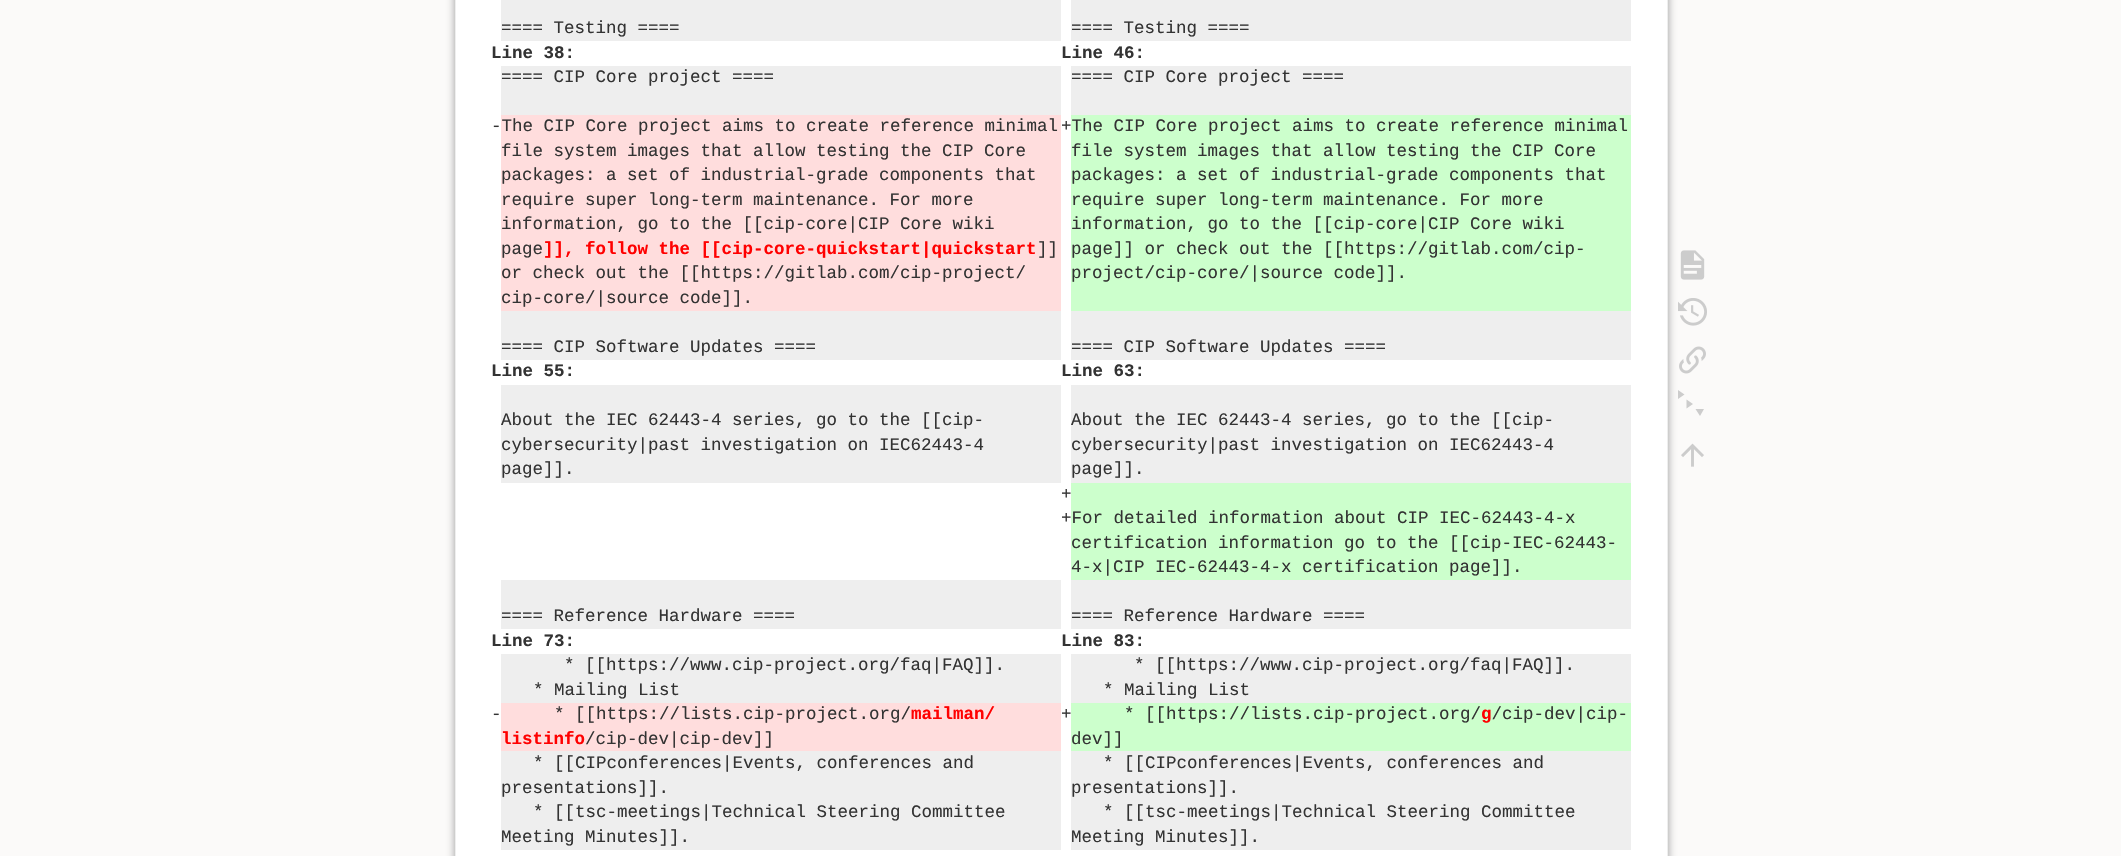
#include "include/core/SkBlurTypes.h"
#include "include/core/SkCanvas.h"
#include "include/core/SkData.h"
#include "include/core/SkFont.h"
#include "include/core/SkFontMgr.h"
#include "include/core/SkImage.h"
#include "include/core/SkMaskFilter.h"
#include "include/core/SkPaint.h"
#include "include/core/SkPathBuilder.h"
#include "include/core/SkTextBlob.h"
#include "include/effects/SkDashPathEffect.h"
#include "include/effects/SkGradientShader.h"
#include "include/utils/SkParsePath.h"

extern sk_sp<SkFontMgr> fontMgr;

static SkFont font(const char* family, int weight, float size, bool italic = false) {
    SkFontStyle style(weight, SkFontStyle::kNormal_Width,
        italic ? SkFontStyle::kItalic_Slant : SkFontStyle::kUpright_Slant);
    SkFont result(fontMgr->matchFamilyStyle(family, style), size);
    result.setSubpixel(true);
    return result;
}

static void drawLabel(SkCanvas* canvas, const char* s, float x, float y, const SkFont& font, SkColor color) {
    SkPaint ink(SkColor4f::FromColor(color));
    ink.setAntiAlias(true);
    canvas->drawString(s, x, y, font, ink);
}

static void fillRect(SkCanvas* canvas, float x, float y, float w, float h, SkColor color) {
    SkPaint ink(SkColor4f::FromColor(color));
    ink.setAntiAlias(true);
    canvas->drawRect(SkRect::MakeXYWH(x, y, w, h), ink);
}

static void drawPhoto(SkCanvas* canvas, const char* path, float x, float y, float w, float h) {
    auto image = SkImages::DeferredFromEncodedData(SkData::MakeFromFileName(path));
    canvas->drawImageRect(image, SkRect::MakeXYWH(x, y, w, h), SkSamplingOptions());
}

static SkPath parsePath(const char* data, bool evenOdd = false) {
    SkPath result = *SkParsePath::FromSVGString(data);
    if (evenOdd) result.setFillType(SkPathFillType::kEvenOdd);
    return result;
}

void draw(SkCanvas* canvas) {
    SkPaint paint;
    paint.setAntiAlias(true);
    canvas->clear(0xFFFBFAF9);
    paint.setColor(0xFF999999);
    paint.setMaskFilter(SkMaskFilter::MakeBlur(kNormal_SkBlurStyle, 4.5f));
    canvas->drawRoundRect(SkRect::MakeXYWH(455, -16, 1213, 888), 2.5f, 2.5f, paint);
    paint.setMaskFilter(nullptr);
    paint.setColor(0xFFFFFFFF);
    canvas->drawRect(SkRect::MakeXYWH(455.5f, -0.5f, 1212, 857), paint);
    paint.setStroke(true);
    paint.setStrokeWidth(1);
    paint.setColor(0xFFEEEEEE);
    canvas->drawRect(SkRect::MakeXYWH(455.5f, -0.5f, 1212, 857), paint);
    fillRect(canvas, 501, 0, 560, 41, 0xFFEEEEEE);
    fillRect(canvas, 1071, 0, 560, 41, 0xFFEEEEEE);
    SkFont font1 = font("Liberation Mono", 400, 17.5f);
    drawLabel(canvas, "==== Testing ====", 501, 33, font1, 0xFF333333);
    drawLabel(canvas, "==== Testing ====", 1071, 33, font1, 0xFF333333);
    SkFont font2 = font("Liberation Mono", 700, 17.5f);
    drawLabel(canvas, "Line 38:", 491, 58, font2, 0xFF333333);
    drawLabel(canvas, "Line 46:", 1061, 58, font2, 0xFF333333);
    fillRect(canvas, 501, 66, 560, 49, 0xFFEEEEEE);
    drawLabel(canvas, "==== CIP Core project ====", 501, 82, font1, 0xFF333333);
    fillRect(canvas, 1071, 66, 560, 49, 0xFFEEEEEE);
    drawLabel(canvas, "==== CIP Core project ====", 1071, 82, font1, 0xFF333333);
    fillRect(canvas, 501, 115, 560, 196, 0xFFFFDDDD);
    drawLabel(canvas, "-The CIP Core project aims to create reference minimal", 491, 131, font1, 0xFF333333);
    fillRect(canvas, 1071, 115, 560, 196, 0xFFCCFFCC);
    drawLabel(canvas, "+The CIP Core project aims to create reference minimal", 1061, 131, font1, 0xFF333333);
    drawLabel(canvas, "file system images that allow testing the CIP Core", 501, 156, font1, 0xFF333333);
    drawLabel(canvas, "packages: a set of industrial-grade components that", 501, 180, font1, 0xFF333333);
    drawLabel(canvas, "require super long-term maintenance. For more", 501, 205, font1, 0xFF333333);
    drawLabel(canvas, "information, go to the [[cip-core|CIP Core wiki", 501, 229, font1, 0xFF333333);
    drawLabel(canvas, "page", 501, 254, font1, 0xFF333333);
    drawLabel(canvas, "]], follow the [[cip-core-quickstart|quickstart", 543, 254, font2, 0xFFFF0000);
    drawLabel(canvas, "]]", 1037, 254, font1, 0xFF333333);
    drawLabel(canvas, "or check out the [[https://gitlab.com/cip-project/", 501, 278, font1, 0xFF333333);
    drawLabel(canvas, "cip-core/|source code]].", 501, 303, font1, 0xFF333333);
    drawLabel(canvas, "file system images that allow testing the CIP Core", 1071, 156, font1, 0xFF333333);
    drawLabel(canvas, "packages: a set of industrial-grade components that", 1071, 180, font1, 0xFF333333);
    drawLabel(canvas, "require super long-term maintenance. For more", 1071, 205, font1, 0xFF333333);
    drawLabel(canvas, "information, go to the [[cip-core|CIP Core wiki", 1071, 229, font1, 0xFF333333);
    drawLabel(canvas, "page]] or check out the [[https://gitlab.com/cip-", 1071, 254, font1, 0xFF333333);
    drawLabel(canvas, "project/cip-core/|source code]].", 1071, 278, font1, 0xFF333333);
    fillRect(canvas, 501, 311, 560, 49, 0xFFEEEEEE);
    fillRect(canvas, 1071, 311, 560, 49, 0xFFEEEEEE);
    drawLabel(canvas, "==== CIP Software Updates ====", 501, 352, font1, 0xFF333333);
    drawLabel(canvas, "==== CIP Software Updates ====", 1071, 352, font1, 0xFF333333);
    drawLabel(canvas, "Line 55:", 491, 376, font2, 0xFF333333);
    drawLabel(canvas, "Line 63:", 1061, 376, font2, 0xFF333333);
    fillRect(canvas, 501, 385, 560, 98, 0xFFEEEEEE);
    fillRect(canvas, 1071, 385, 560, 98, 0xFFEEEEEE);
    drawLabel(canvas, "About the IEC 62443-4 series, go to the [[cip-", 501, 425, font1, 0xFF333333);
    drawLabel(canvas, "cybersecurity|past investigation on IEC62443-4", 501, 450, font1, 0xFF333333);
    drawLabel(canvas, "page]].", 501, 474, font1, 0xFF333333);
    drawLabel(canvas, "About the IEC 62443-4 series, go to the [[cip-", 1071, 425, font1, 0xFF333333);
    drawLabel(canvas, "cybersecurity|past investigation on IEC62443-4", 1071, 450, font1, 0xFF333333);
    drawLabel(canvas, "page]].", 1071, 474, font1, 0xFF333333);
    drawLabel(canvas, "+", 1061, 499, font1, 0xFF333333);
    fillRect(canvas, 1071, 483, 560, 97, 0xFFCCFFCC);
    drawLabel(canvas, "+For detailed information about CIP IEC-62443-4-x", 1061, 523, font1, 0xFF333333);
    drawLabel(canvas, "certification information go to the [[cip-IEC-62443-", 1071, 548, font1, 0xFF333333);
    drawLabel(canvas, "4-x|CIP IEC-62443-4-x certification page]].", 1071, 572, font1, 0xFF333333);
    fillRect(canvas, 501, 580, 560, 49, 0xFFEEEEEE);
    fillRect(canvas, 1071, 580, 560, 49, 0xFFEEEEEE);
    drawLabel(canvas, "==== Reference Hardware ====", 501, 621, font1, 0xFF333333);
    drawLabel(canvas, "==== Reference Hardware ====", 1071, 621, font1, 0xFF333333);
    drawLabel(canvas, "Line 73:", 491, 646, font2, 0xFF333333);
    drawLabel(canvas, "Line 83:", 1061, 646, font2, 0xFF333333);
    fillRect(canvas, 501, 654, 560, 49, 0xFFEEEEEE);
    drawLabel(canvas, "* [[https://www.cip-project.org/faq|FAQ]].", 564, 670, font1, 0xFF333333);
    fillRect(canvas, 1071, 654, 560, 49, 0xFFEEEEEE);
    drawLabel(canvas, "* [[https://www.cip-project.org/faq|FAQ]].", 1134, 670, font1, 0xFF333333);
    drawLabel(canvas, "* Mailing List", 533, 695, font1, 0xFF333333);
    drawLabel(canvas, "* Mailing List", 1103, 695, font1, 0xFF333333);
    drawLabel(canvas, "-", 491, 719, font1, 0xFF333333);
    fillRect(canvas, 501, 703, 560, 48, 0xFFFFDDDD);
    drawLabel(canvas, "* [[https://lists.cip-project.org/", 554, 719, font1, 0xFF333333);
    drawLabel(canvas, "mailman/", 911, 719, font2, 0xFFFF0000);
    drawLabel(canvas, "listinfo", 501, 744, font2, 0xFFFF0000);
    drawLabel(canvas, "/cip-dev|cip-dev]]", 585, 744, font1, 0xFF333333);
    drawLabel(canvas, "+", 1061, 719, font1, 0xFF333333);
    fillRect(canvas, 1071, 703, 560, 48, 0xFFCCFFCC);
    drawLabel(canvas, "* [[https://lists.cip-project.org/ /cip-dev|cip-", 1124, 719, font1, 0xFF333333);
    drawLabel(canvas, "g", 1481, 719, font2, 0xFFFF0000);
    drawLabel(canvas, "dev]]", 1071, 744, font1, 0xFF333333);
    fillRect(canvas, 501, 751, 560, 99, 0xFFEEEEEE);
    drawLabel(canvas, "* [[CIPconferences|Events, conferences and", 533, 768, font1, 0xFF333333);
    drawLabel(canvas, "presentations]].", 501, 793, font1, 0xFF333333);
    fillRect(canvas, 1071, 751, 560, 99, 0xFFEEEEEE);
    drawLabel(canvas, "* [[CIPconferences|Events, conferences and", 1103, 768, font1, 0xFF333333);
    drawLabel(canvas, "presentations]].", 1071, 793, font1, 0xFF333333);
    drawLabel(canvas, "* [[tsc-meetings|Technical Steering Committee", 533, 817, font1, 0xFF333333);
    drawLabel(canvas, "Meeting Minutes]].", 501, 842, font1, 0xFF333333);
    drawLabel(canvas, "* [[tsc-meetings|Technical Steering Committee", 1103, 817, font1, 0xFF333333);
    drawLabel(canvas, "Meeting Minutes]].", 1071, 842, font1, 0xFF333333);
    drawPhoto(canvas, "assets/img1.png", 1680, 250, 25, 30);
    drawPhoto(canvas, "assets/img2.png", 1678, 298, 29, 28);
    drawPhoto(canvas, "assets/img3.png", 1679, 346, 27, 28);
    paint.setStroke(false);
    paint.setColor(0xFFCCCCCC);
    canvas->drawPath(parsePath("M1678 390L1684.5 394.5L1678 399ZM1686.5 399.5L1693 404L1686.5 408.5ZM1695.5 409H1704L1700 416Z"), paint);
    drawPhoto(canvas, "assets/img4.png", 1681, 443, 23, 24);
}
